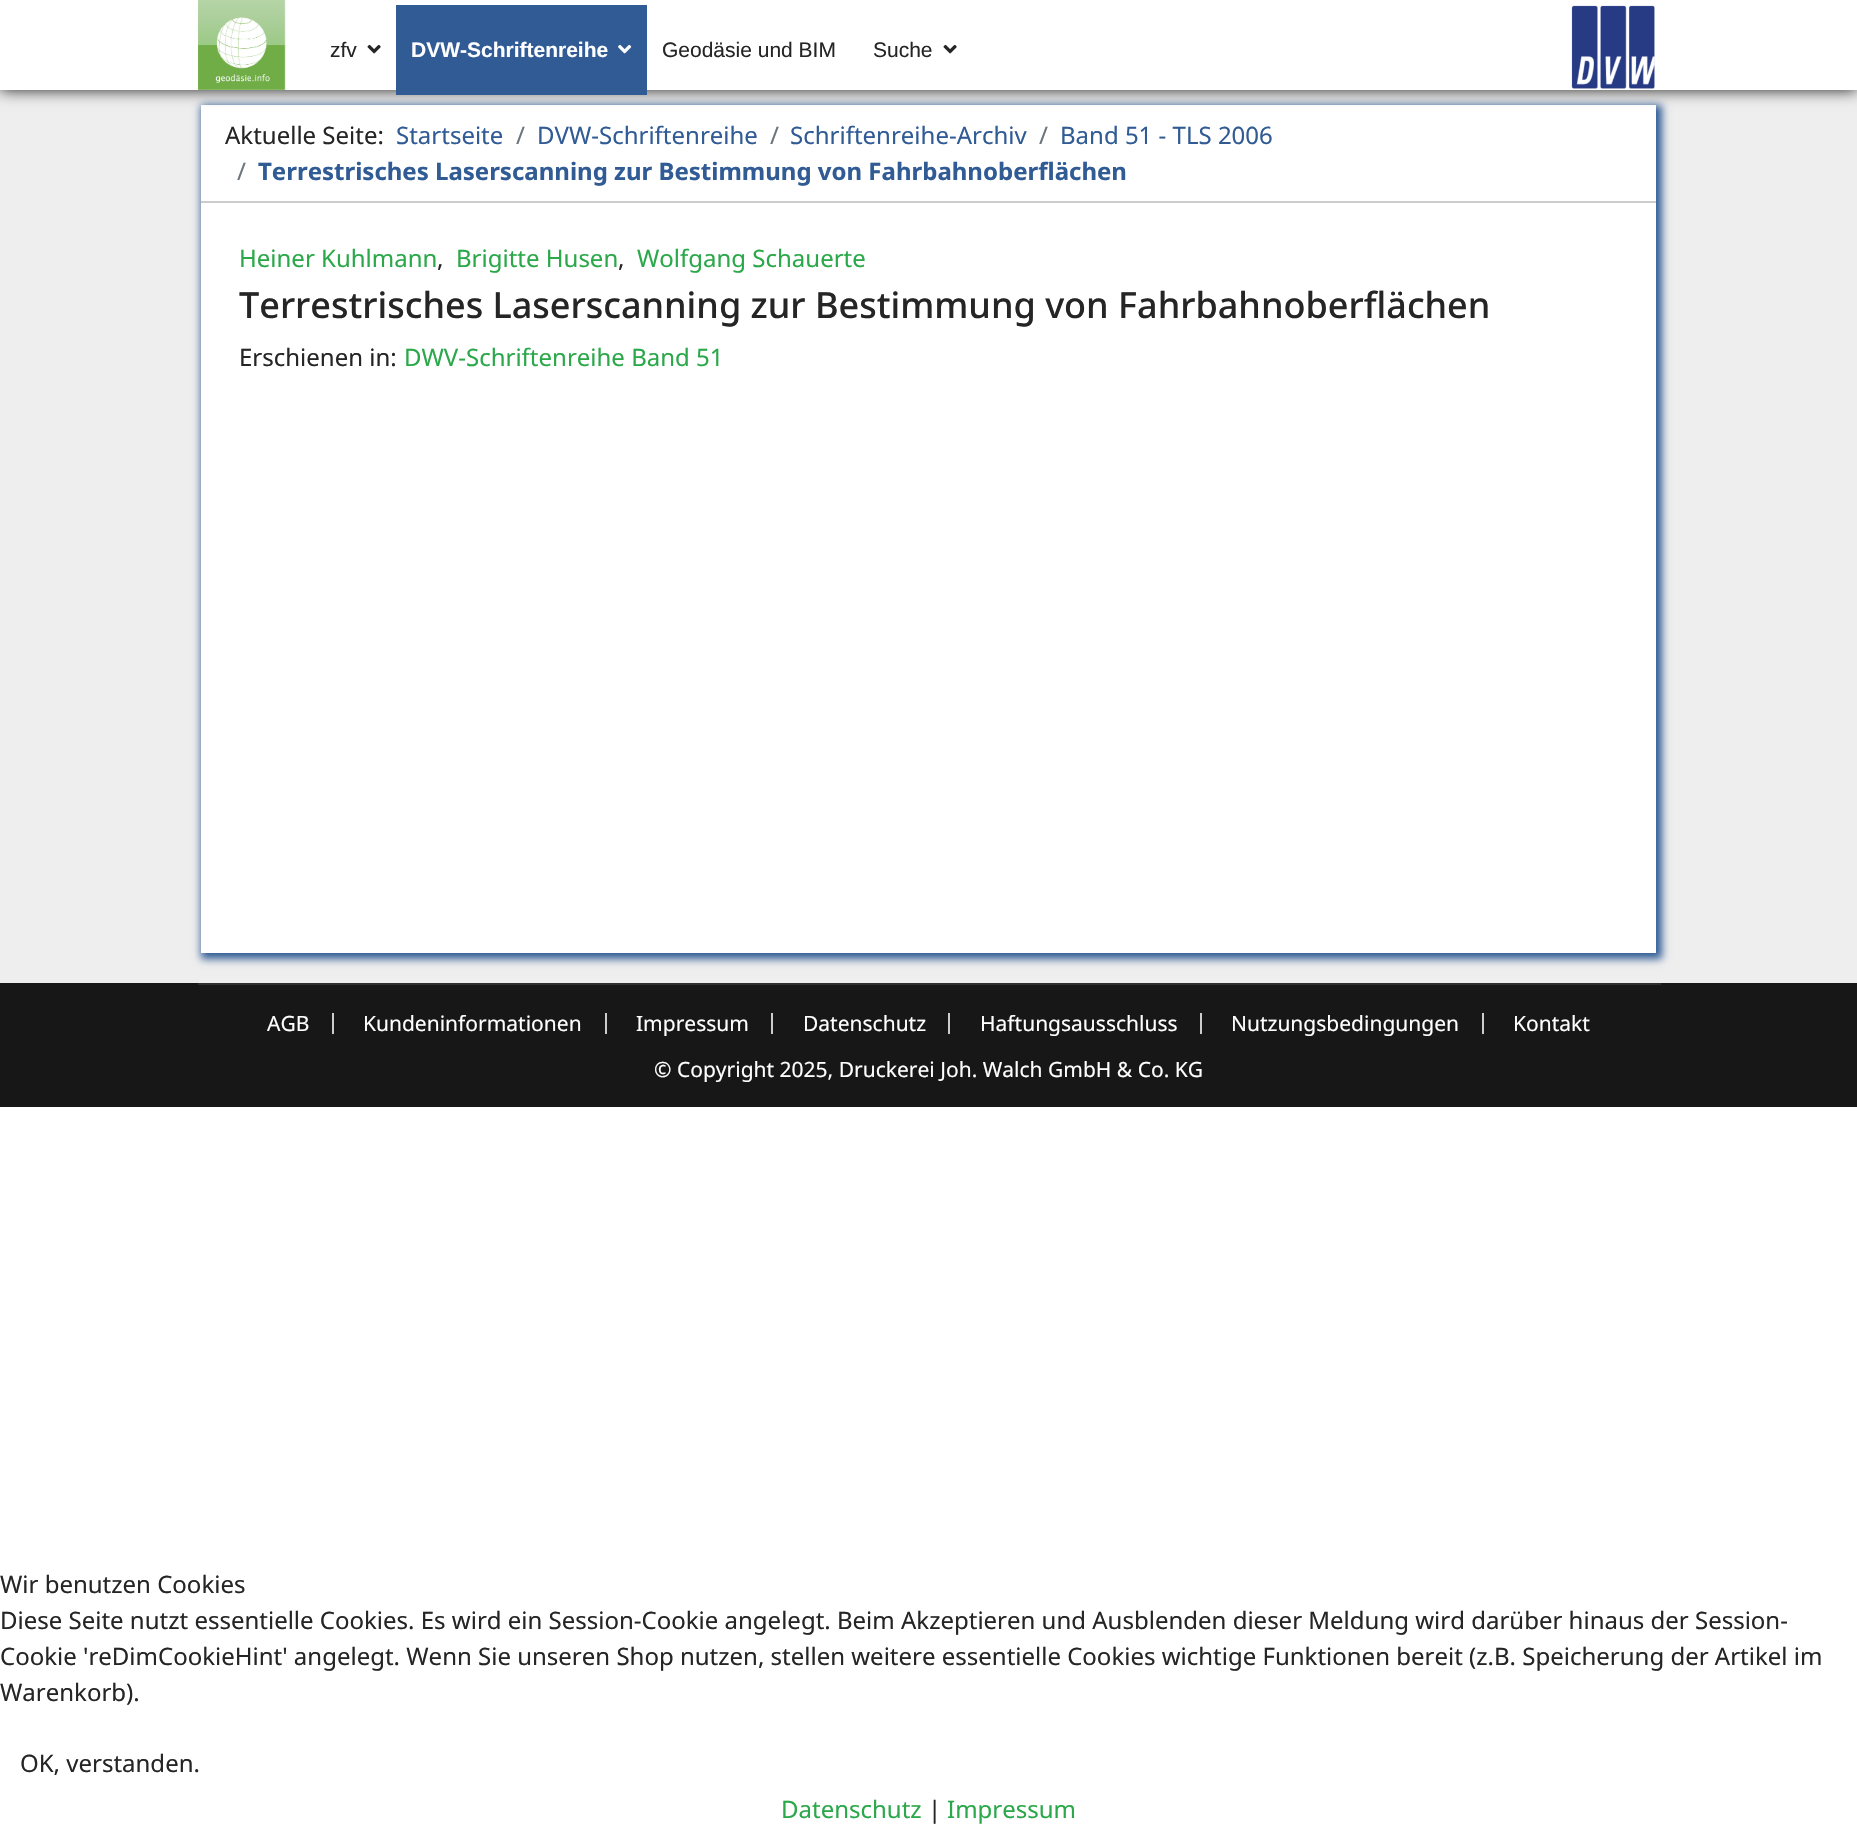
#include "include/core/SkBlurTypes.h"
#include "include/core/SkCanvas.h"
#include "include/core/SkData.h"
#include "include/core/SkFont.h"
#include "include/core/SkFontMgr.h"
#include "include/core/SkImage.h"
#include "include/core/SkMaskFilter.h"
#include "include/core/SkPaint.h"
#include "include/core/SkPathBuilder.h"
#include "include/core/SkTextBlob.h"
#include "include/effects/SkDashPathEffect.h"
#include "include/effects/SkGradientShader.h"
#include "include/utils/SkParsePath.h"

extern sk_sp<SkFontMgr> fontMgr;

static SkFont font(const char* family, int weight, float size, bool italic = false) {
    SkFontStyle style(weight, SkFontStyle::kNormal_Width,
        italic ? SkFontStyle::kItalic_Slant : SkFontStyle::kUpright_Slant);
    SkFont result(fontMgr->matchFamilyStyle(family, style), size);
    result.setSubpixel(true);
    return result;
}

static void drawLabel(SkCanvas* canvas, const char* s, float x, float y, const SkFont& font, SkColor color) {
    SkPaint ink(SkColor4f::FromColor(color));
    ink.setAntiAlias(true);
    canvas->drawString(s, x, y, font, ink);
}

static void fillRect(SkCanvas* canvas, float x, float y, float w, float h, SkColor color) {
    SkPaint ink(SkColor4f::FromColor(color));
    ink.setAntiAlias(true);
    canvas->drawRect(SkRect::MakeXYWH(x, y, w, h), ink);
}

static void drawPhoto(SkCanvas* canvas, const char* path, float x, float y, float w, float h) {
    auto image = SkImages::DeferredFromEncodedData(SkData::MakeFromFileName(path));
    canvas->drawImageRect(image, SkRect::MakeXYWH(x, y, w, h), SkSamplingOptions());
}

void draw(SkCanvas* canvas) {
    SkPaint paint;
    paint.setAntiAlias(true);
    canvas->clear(0xFFFFFFFF);
    fillRect(canvas, 0, 90, 1857, 893, 0xFFEEEEEE);
    paint.setColor(0xFF305B95);
    paint.setMaskFilter(SkMaskFilter::MakeBlur(kNormal_SkBlurStyle, 4));
    canvas->drawRect(SkRect::MakeXYWH(201, 105, 1461, 854), paint);
    paint.setMaskFilter(nullptr);
    fillRect(canvas, 201, 105, 1455, 96, 0xFFFFFFFF);
    paint.setColor(0xFF202020);
    paint.setMaskFilter(SkMaskFilter::MakeBlur(kNormal_SkBlurStyle, 7.5f));
    canvas->drawRect(SkRect::MakeXYWH(0, 0, 1857, 90), paint);
    paint.setMaskFilter(nullptr);
    fillRect(canvas, 0, 0, 1857, 90, 0xFFFFFFFF);
    drawPhoto(canvas, "assets/img1.png", 198, 0, 88, 90);
    SkFont font1 = font("Liberation Sans", 400, 21);
    drawLabel(canvas, "zfv", 330, 57, font1, 0xFF252525);
    drawPhoto(canvas, "assets/img2.png", 367, 44, 14, 10);
    fillRect(canvas, 396, 5, 251, 90, 0xFF305B95);
    SkFont font2 = font("Liberation Sans", 700, 21);
    drawLabel(canvas, "DVW-Schriftenreihe", 411, 57, font2, 0xFFFFFFFF);
    drawPhoto(canvas, "assets/img3.png", 618, 44, 14, 10);
    drawLabel(canvas, "Geodäsie und BIM", 662, 57, font1, 0xFF252525);
    drawLabel(canvas, "Suche", 873, 57, font1, 0xFF252525);
    drawPhoto(canvas, "assets/img2.png", 943, 44, 14, 10);
    drawPhoto(canvas, "assets/img4.png", 1571, 5, 84, 84);
    fillRect(canvas, 201, 201, 1455, 2, 0xFFCCCCCC);
    SkFont font3 = font("Noto Sans", 400, 24);
    drawLabel(canvas, "Aktuelle Seite:", 225, 144, font3, 0xFF252525);
    drawLabel(canvas, "Startseite", 396, 144, font3, 0xFF305B95);
    drawLabel(canvas, "/", 516, 144, font3, 0xFF6C757D);
    drawLabel(canvas, "DVW-Schriftenreihe", 537, 144, font3, 0xFF305B95);
    drawLabel(canvas, "/", 770, 144, font3, 0xFF6C757D);
    drawLabel(canvas, "Schriftenreihe-Archiv", 790, 144, font3, 0xFF305B95);
    drawLabel(canvas, "/", 1039, 144, font3, 0xFF6C757D);
    drawLabel(canvas, "Band 51 - TLS 2006", 1060, 144, font3, 0xFF305B95);
    drawLabel(canvas, "/", 237, 180, font3, 0xFF6C757D);
    SkFont font4 = font("Noto Sans", 700, 24);
    drawLabel(canvas, "Terrestrisches Laserscanning zur Bestimmung von Fahrbahnoberflächen", 258, 180, font4, 0xFF305B95);
    fillRect(canvas, 201, 203, 1455, 750, 0xFFFFFFFF);
    drawLabel(canvas, "Heiner Kuhlmann", 239, 267, font3, 0xFF2BA84A);
    drawLabel(canvas, ",", 437, 267, font3, 0xFF252525);
    drawLabel(canvas, "Brigitte Husen", 456, 267, font3, 0xFF2BA84A);
    drawLabel(canvas, ",", 618, 267, font3, 0xFF252525);
    drawLabel(canvas, "Wolfgang Schauerte", 637, 267, font3, 0xFF2BA84A);
    SkFont font5 = font("Noto Sans", 500, 36);
    drawLabel(canvas, "Terrestrisches Laserscanning zur Bestimmung von Fahrbahnoberflächen", 239, 318, font5, 0xFF252525);
    drawLabel(canvas, "Erschienen in:", 239, 366, font3, 0xFF252525);
    drawLabel(canvas, "DWV-Schriftenreihe Band 51", 404, 366, font3, 0xFF2BA84A);
    fillRect(canvas, 0, 983, 1857, 124, 0xFF171717);
    fillRect(canvas, 198, 983, 1463, 2, 0xFF2E2E2E);
    fillRect(canvas, 332, 1013, 2, 21, 0xFFCCCCCC);
    SkFont font6 = font("Noto Sans", 400, 21);
    drawLabel(canvas, "AGB", 267, 1031, font6, 0xFFFFFFFF);
    fillRect(canvas, 605, 1013, 2, 21, 0xFFCCCCCC);
    drawLabel(canvas, "Kundeninformationen", 363, 1031, font6, 0xFFFFFFFF);
    fillRect(canvas, 771, 1013, 2, 21, 0xFFCCCCCC);
    drawLabel(canvas, "Impressum", 636, 1031, font6, 0xFFFFFFFF);
    fillRect(canvas, 948, 1013, 2, 21, 0xFFCCCCCC);
    drawLabel(canvas, "Datenschutz", 803, 1031, font6, 0xFFFFFFFF);
    fillRect(canvas, 1200, 1013, 2, 21, 0xFFCCCCCC);
    drawLabel(canvas, "Haftungsausschluss", 980, 1031, font6, 0xFFFFFFFF);
    fillRect(canvas, 1482, 1013, 2, 21, 0xFFCCCCCC);
    drawLabel(canvas, "Nutzungsbedingungen", 1231, 1031, font6, 0xFFFFFFFF);
    drawLabel(canvas, "Kontakt", 1513, 1031, font6, 0xFFFFFFFF);
    drawLabel(canvas, "© Copyright 2025, Druckerei Joh. Walch GmbH & Co. KG", 654, 1077, font6, 0xFFFFFFFF);
    drawLabel(canvas, "Wir benutzen Cookies", 0, 1593, font3, 0xFF252525);
    drawLabel(canvas, "Diese Seite nutzt essentielle Cookies. Es wird ein Session-Cookie angelegt. Beim Akzeptieren und Ausblenden dieser Meldung wird darüber hinaus der Session-", 0, 1629, font3, 0xFF252525);
    drawLabel(canvas, "Cookie 'reDimCookieHint' angelegt. Wenn Sie unseren Shop nutzen, stellen weitere essentielle Cookies wichtige Funktionen bereit (z.B. Speicherung der Artikel im", 0, 1665, font3, 0xFF252525);
    drawLabel(canvas, "Warenkorb).", 0, 1701, font3, 0xFF252525);
    drawLabel(canvas, "OK, verstanden.", 20, 1772, font3, 0xFF252525);
    drawLabel(canvas, "Datenschutz", 781, 1818, font3, 0xFF2BA84A);
    drawLabel(canvas, "|", 928, 1818, font3, 0xFF252525);
    drawLabel(canvas, "Impressum", 947, 1818, font3, 0xFF2BA84A);
}
